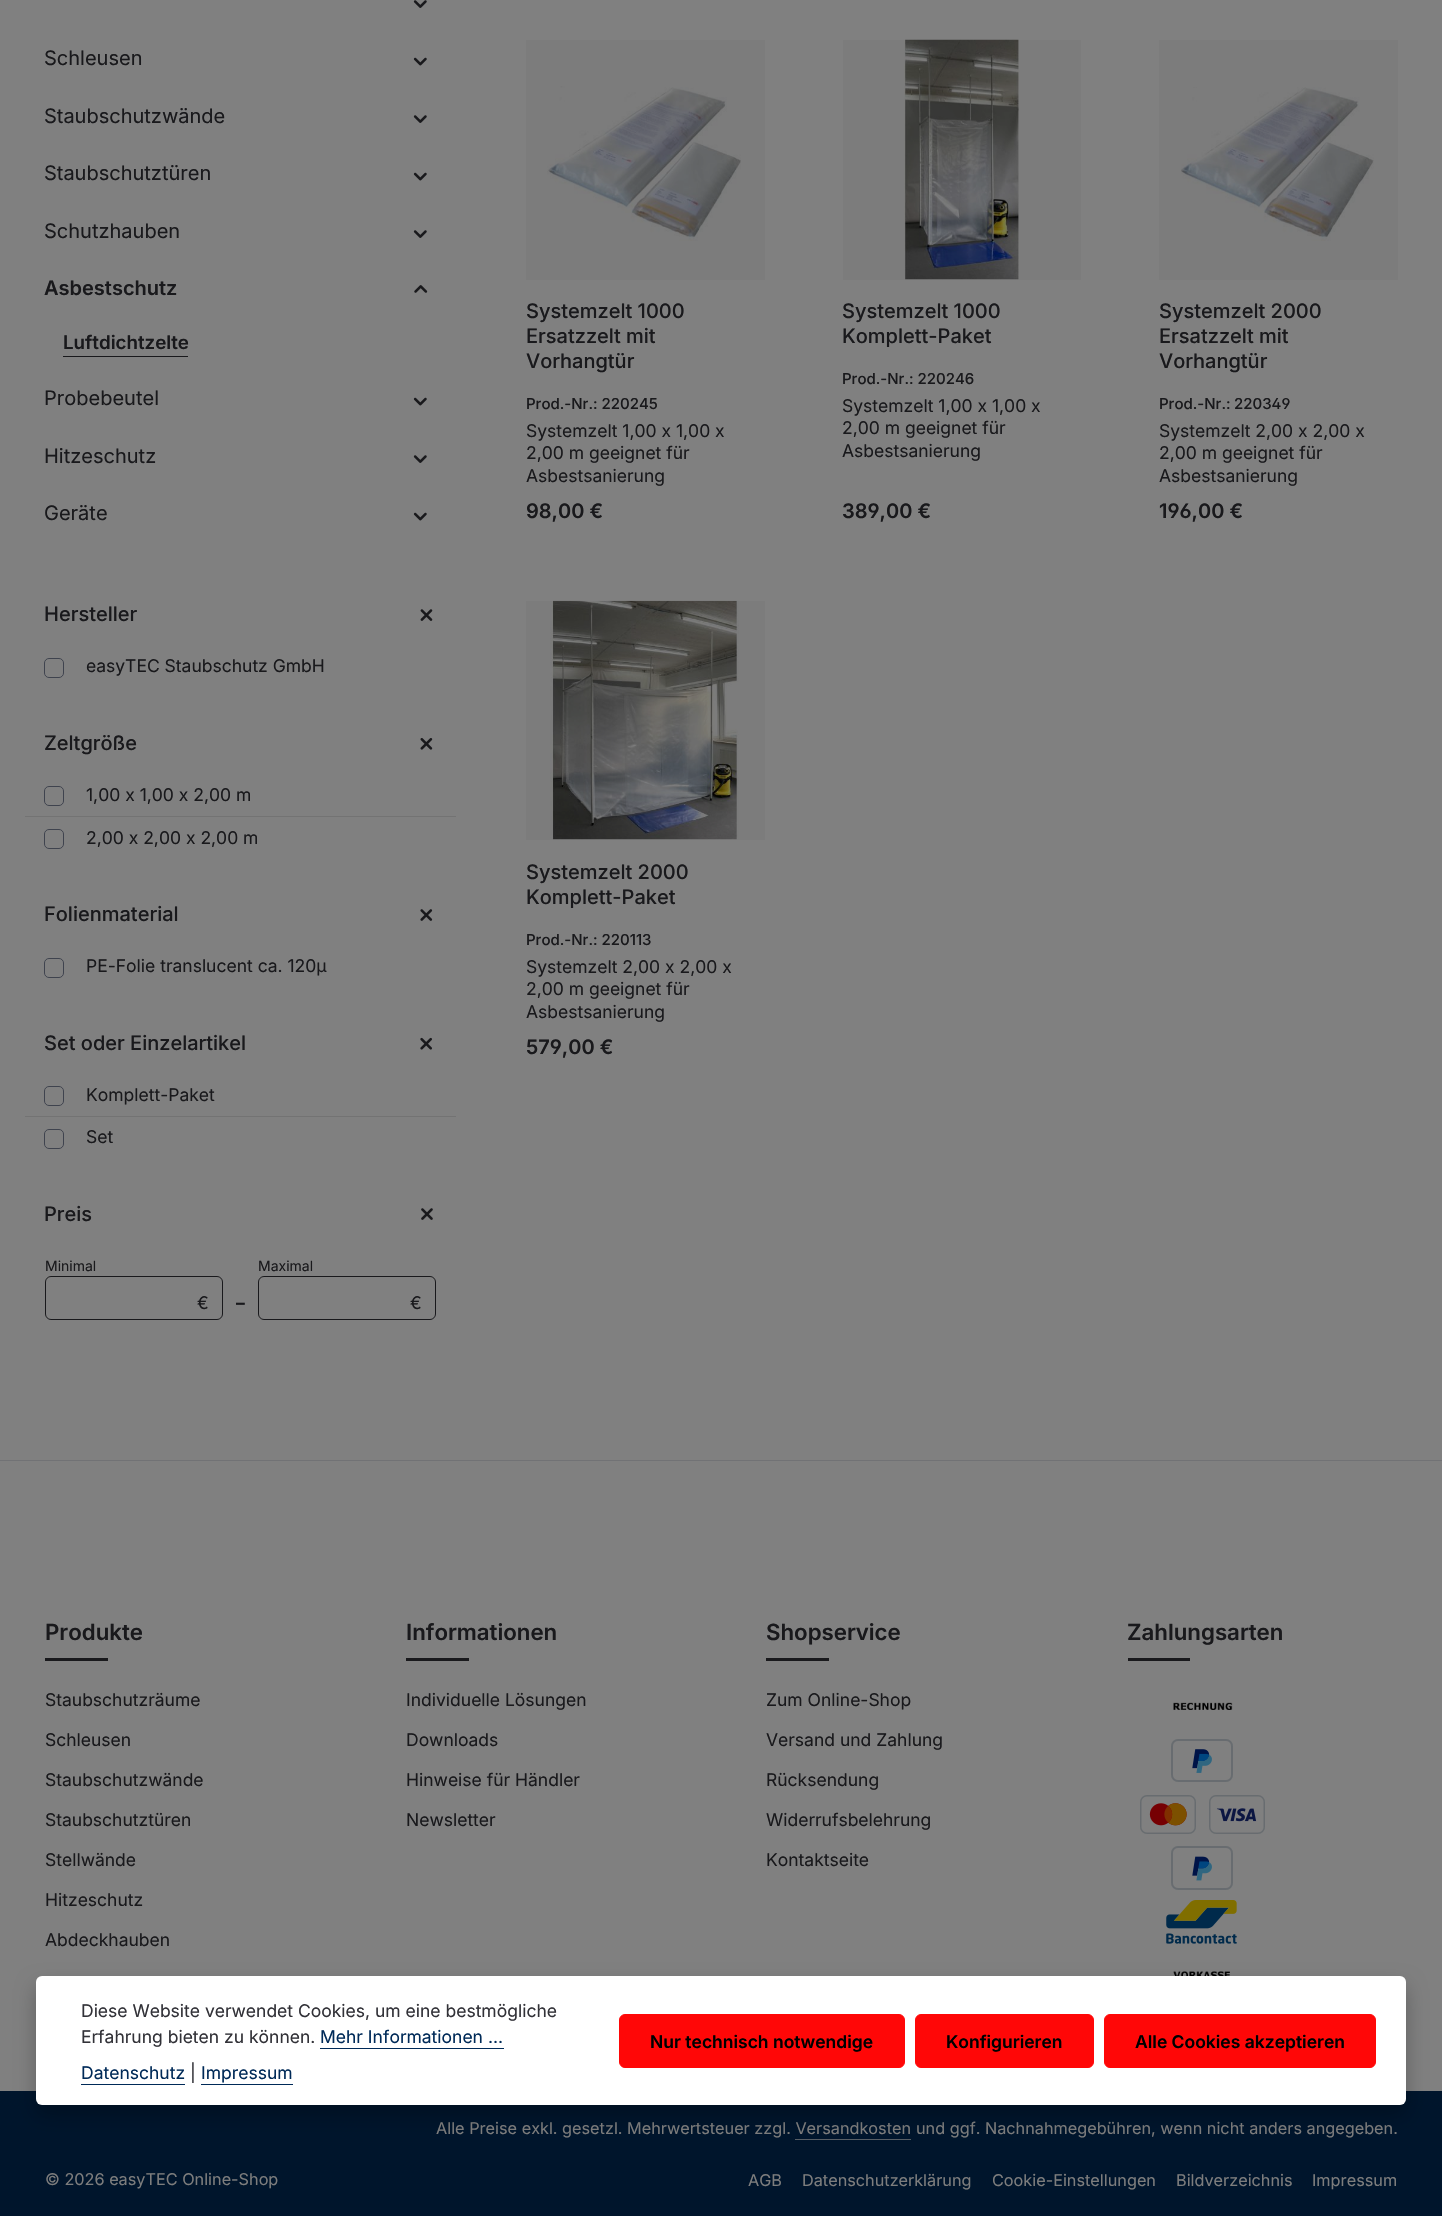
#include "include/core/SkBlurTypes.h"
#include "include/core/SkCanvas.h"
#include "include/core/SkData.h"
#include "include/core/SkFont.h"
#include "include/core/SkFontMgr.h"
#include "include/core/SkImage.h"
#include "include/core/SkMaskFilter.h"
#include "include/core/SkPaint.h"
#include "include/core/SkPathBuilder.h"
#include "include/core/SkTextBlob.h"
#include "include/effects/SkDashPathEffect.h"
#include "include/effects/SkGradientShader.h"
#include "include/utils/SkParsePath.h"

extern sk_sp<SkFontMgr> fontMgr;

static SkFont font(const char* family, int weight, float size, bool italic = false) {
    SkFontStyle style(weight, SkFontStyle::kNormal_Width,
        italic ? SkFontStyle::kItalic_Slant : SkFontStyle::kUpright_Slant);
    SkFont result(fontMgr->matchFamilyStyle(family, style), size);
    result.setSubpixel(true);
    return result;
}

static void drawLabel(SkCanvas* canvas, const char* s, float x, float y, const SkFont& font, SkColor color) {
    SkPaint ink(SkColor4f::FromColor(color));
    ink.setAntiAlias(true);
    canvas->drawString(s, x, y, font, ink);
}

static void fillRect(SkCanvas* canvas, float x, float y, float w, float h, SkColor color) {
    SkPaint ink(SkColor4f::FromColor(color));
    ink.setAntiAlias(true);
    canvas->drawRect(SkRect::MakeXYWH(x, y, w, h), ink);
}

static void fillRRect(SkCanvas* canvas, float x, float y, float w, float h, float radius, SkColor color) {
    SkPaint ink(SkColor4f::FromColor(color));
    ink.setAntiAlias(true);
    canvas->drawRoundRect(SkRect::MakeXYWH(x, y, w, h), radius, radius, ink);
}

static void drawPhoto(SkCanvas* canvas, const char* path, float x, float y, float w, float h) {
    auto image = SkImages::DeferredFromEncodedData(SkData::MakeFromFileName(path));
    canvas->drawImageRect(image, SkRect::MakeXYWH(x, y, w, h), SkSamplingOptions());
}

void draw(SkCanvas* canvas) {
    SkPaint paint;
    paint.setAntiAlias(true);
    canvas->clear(0xFF808080);
    drawPhoto(canvas, "assets/img1.png", 413, 0, 14, 8);
    SkFont font1 = font("Inter", 400, 20);
    drawLabel(canvas, "Schleusen", 44, 65, font1, 0xFF19191C);
    drawPhoto(canvas, "assets/img2.png", 413, 57, 14, 9);
    drawLabel(canvas, "Staubschutzwände", 44, 123, font1, 0xFF19191C);
    drawPhoto(canvas, "assets/img1.png", 413, 115, 14, 8);
    drawLabel(canvas, "Staubschutztüren", 44, 180, font1, 0xFF19191C);
    drawPhoto(canvas, "assets/img2.png", 413, 172, 14, 9);
    drawLabel(canvas, "Schutzhauben", 44, 238, font1, 0xFF19191C);
    drawPhoto(canvas, "assets/img1.png", 413, 230, 14, 8);
    SkFont font2 = font("Inter", 600, 20);
    drawLabel(canvas, "Asbestschutz", 44, 295, font2, 0xFF19191C);
    drawPhoto(canvas, "assets/img3.png", 414, 285, 14, 8);
    SkFont font3 = font("Inter", 600, 18.75f);
    drawLabel(canvas, "Luftdichtzelte", 63, 349, font3, 0xFF19191C);
    fillRect(canvas, 63, 356, 125, 1, 0xFF19191C);
    drawLabel(canvas, "Probebeutel", 44, 405, font1, 0xFF19191C);
    drawPhoto(canvas, "assets/img2.png", 413, 397, 14, 9);
    drawLabel(canvas, "Hitzeschutz", 44, 463, font1, 0xFF19191C);
    drawPhoto(canvas, "assets/img1.png", 413, 455, 14, 8);
    drawLabel(canvas, "Geräte", 44, 520, font1, 0xFF19191C);
    drawPhoto(canvas, "assets/img2.png", 413, 512, 14, 9);
    SkFont font4 = font("Inter", 500, 20);
    drawLabel(canvas, "Hersteller", 44, 621, font4, 0xFF19191C);
    drawPhoto(canvas, "assets/img4.png", 420, 609, 13, 12);
    paint.setStroke(true);
    paint.setStrokeWidth(1);
    paint.setColor(0xFF3F434E);
    canvas->drawRoundRect(SkRect::MakeXYWH(44.5f, 658.5f, 19, 19), 4.5f, 4.5f, paint);
    SkFont font5 = font("Inter", 400, 17.5f);
    drawLabel(canvas, "easyTEC Staubschutz GmbH", 86, 672, font5, 0xFF19191C);
    drawLabel(canvas, "Zeltgröße", 44, 750, font4, 0xFF19191C);
    drawPhoto(canvas, "assets/img5.png", 420, 738, 13, 12);
    fillRect(canvas, 25, 816, 431, 1, 0xFF737373);
    canvas->drawRoundRect(SkRect::MakeXYWH(44.5f, 786.5f, 19, 19), 4.5f, 4.5f, paint);
    drawLabel(canvas, "1,00 x 1,00 x 2,00 m", 86, 801, font5, 0xFF19191C);
    canvas->drawRoundRect(SkRect::MakeXYWH(44.5f, 829.5f, 19, 19), 4.5f, 4.5f, paint);
    drawLabel(canvas, "2,00 x 2,00 x 2,00 m", 86, 844, font5, 0xFF19191C);
    drawLabel(canvas, "Folienmaterial", 44, 921, font4, 0xFF19191C);
    drawPhoto(canvas, "assets/img6.png", 420, 909, 13, 12);
    canvas->drawRoundRect(SkRect::MakeXYWH(44.5f, 958.5f, 19, 19), 4.5f, 4.5f, paint);
    drawLabel(canvas, "PE-Folie translucent ca. 120µ", 86, 972, font5, 0xFF19191C);
    drawLabel(canvas, "Set oder Einzelartikel", 44, 1050, font4, 0xFF19191C);
    drawPhoto(canvas, "assets/img7.png", 420, 1037, 12, 13);
    fillRect(canvas, 25, 1116, 431, 1, 0xFF737373);
    canvas->drawRoundRect(SkRect::MakeXYWH(44.5f, 1086.5f, 19, 19), 4.5f, 4.5f, paint);
    drawLabel(canvas, "Komplett-Paket", 86, 1101, font5, 0xFF19191C);
    canvas->drawRoundRect(SkRect::MakeXYWH(44.5f, 1129.5f, 19, 19), 4.5f, 4.5f, paint);
    drawLabel(canvas, "Set", 86, 1143, font5, 0xFF19191C);
    drawLabel(canvas, "Preis", 44, 1221, font4, 0xFF19191C);
    drawPhoto(canvas, "assets/img8.png", 421, 1208, 12, 12);
    SkFont font6 = font("Inter", 400, 14);
    drawLabel(canvas, "Minimal", 45, 1271, font6, 0xFF19191C);
    paint.setColor(0xFF19191C);
    canvas->drawRoundRect(SkRect::MakeXYWH(45.5f, 1276.5f, 177, 43), 5.5f, 5.5f, paint);
    drawLabel(canvas, "€", 197, 1309, font5, 0xFF19191C);
    SkFont font7 = font("Inter", 700, 17.5f);
    drawLabel(canvas, "–", 236, 1309, font7, 0xFF19191C);
    drawLabel(canvas, "Maximal", 258, 1271, font6, 0xFF19191C);
    canvas->drawRoundRect(SkRect::MakeXYWH(258.5f, 1276.5f, 177, 43), 5.5f, 5.5f, paint);
    drawLabel(canvas, "€", 410, 1309, font5, 0xFF19191C);
    drawPhoto(canvas, "assets/img9.png", 547, 86, 194, 155);
    fillRect(canvas, 526, 40, 239, 240, 0x08000000);
    drawLabel(canvas, "Systemzelt 1000", 526, 318, font4, 0xFF19191C);
    drawLabel(canvas, "Ersatzzelt mit", 526, 343, font4, 0xFF19191C);
    drawLabel(canvas, "Vorhangtür", 526, 368, font4, 0xFF19191C);
    SkFont font8 = font("Inter", 500, 15);
    drawLabel(canvas, "Prod.-Nr.: 220245", 526, 409, font8, 0xFF19191C);
    drawLabel(canvas, "Systemzelt 1,00 x 1,00 x", 526, 437, font5, 0xFF19191C);
    drawLabel(canvas, "2,00 m geeignet für", 526, 459, font5, 0xFF19191C);
    drawLabel(canvas, "Asbestsanierung", 526, 482, font5, 0xFF19191C);
    drawLabel(canvas, "98,00 €", 526, 518, font2, 0xFF19191C);
    drawPhoto(canvas, "assets/img10.png", 904, 39, 115, 241);
    fillRect(canvas, 843, 40, 238, 240, 0x08000000);
    drawLabel(canvas, "Systemzelt 1000", 842, 318, font4, 0xFF19191C);
    drawLabel(canvas, "Komplett-Paket", 842, 343, font4, 0xFF19191C);
    drawLabel(canvas, "Prod.-Nr.: 220246", 842, 384, font8, 0xFF19191C);
    drawLabel(canvas, "Systemzelt 1,00 x 1,00 x", 842, 412, font5, 0xFF19191C);
    drawLabel(canvas, "2,00 m geeignet für", 842, 434, font5, 0xFF19191C);
    drawLabel(canvas, "Asbestsanierung", 842, 457, font5, 0xFF19191C);
    SkFont font9 = font("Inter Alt", 600, 20);
    drawLabel(canvas, "389,00 €", 842, 518, font9, 0xFF19191C);
    drawPhoto(canvas, "assets/img11.png", 1181, 87, 193, 154);
    fillRect(canvas, 1159, 40, 239, 240, 0x08000000);
    drawLabel(canvas, "Systemzelt 2000", 1159, 318, font4, 0xFF19191C);
    drawLabel(canvas, "Ersatzzelt mit", 1159, 343, font4, 0xFF19191C);
    drawLabel(canvas, "Vorhangtür", 1159, 368, font4, 0xFF19191C);
    drawLabel(canvas, "Prod.-Nr.:", 1159, 409, font8, 0xFF19191C);
    SkFont font10 = font("Inter Alt", 500, 15);
    drawLabel(canvas, "220349", 1234, 409, font10, 0xFF19191C);
    drawLabel(canvas, "Systemzelt 2,00 x 2,00 x", 1159, 437, font5, 0xFF19191C);
    drawLabel(canvas, "2,00 m geeignet für", 1159, 459, font5, 0xFF19191C);
    drawLabel(canvas, "Asbestsanierung", 1159, 482, font5, 0xFF19191C);
    drawLabel(canvas, "196,00 €", 1159, 518, font9, 0xFF19191C);
    drawPhoto(canvas, "assets/img12.png", 550, 600, 189, 240);
    fillRect(canvas, 526, 601, 239, 239, 0x08000000);
    drawLabel(canvas, "Systemzelt 2000", 526, 879, font4, 0xFF19191C);
    drawLabel(canvas, "Komplett-Paket", 526, 904, font4, 0xFF19191C);
    drawLabel(canvas, "Prod.-Nr.: 220113", 526, 945, font8, 0xFF19191C);
    drawLabel(canvas, "Systemzelt 2,00 x 2,00 x", 526, 973, font5, 0xFF19191C);
    drawLabel(canvas, "2,00 m geeignet für", 526, 995, font5, 0xFF19191C);
    drawLabel(canvas, "Asbestsanierung", 526, 1018, font5, 0xFF19191C);
    drawLabel(canvas, "579,00 €", 526, 1054, font9, 0xFF19191C);
    fillRect(canvas, 0, 1460, 1442, 1, 0xFF717275);
    SkFont font11 = font("Inter", 600, 22.25f);
    drawLabel(canvas, "Produkte", 45, 1640, font11, 0xFF19191C);
    fillRect(canvas, 45, 1658, 63, 3, 0xFF19191C);
    drawLabel(canvas, "Staubschutzräume", 45, 1706, font5, 0xFF19191C);
    drawLabel(canvas, "Schleusen", 45, 1746, font5, 0xFF19191C);
    drawLabel(canvas, "Staubschutzwände", 45, 1786, font5, 0xFF19191C);
    drawLabel(canvas, "Staubschutztüren", 45, 1826, font5, 0xFF19191C);
    drawLabel(canvas, "Stellwände", 45, 1866, font5, 0xFF19191C);
    drawLabel(canvas, "Hitzeschutz", 45, 1906, font5, 0xFF19191C);
    drawLabel(canvas, "Abdeckhauben", 45, 1946, font5, 0xFF19191C);
    drawLabel(canvas, "Informationen", 406, 1640, font11, 0xFF19191C);
    fillRect(canvas, 406, 1658, 63, 3, 0xFF19191C);
    drawLabel(canvas, "Individuelle Lösungen", 406, 1706, font5, 0xFF19191C);
    drawLabel(canvas, "Downloads", 406, 1746, font5, 0xFF19191C);
    drawLabel(canvas, "Hinweise für Händler", 406, 1786, font5, 0xFF19191C);
    drawLabel(canvas, "Newsletter", 406, 1826, font5, 0xFF19191C);
    drawLabel(canvas, "Shopservice", 766, 1640, font11, 0xFF19191C);
    fillRect(canvas, 766, 1658, 63, 3, 0xFF19191C);
    drawLabel(canvas, "Zum Online-Shop", 766, 1706, font5, 0xFF19191C);
    drawLabel(canvas, "Versand und Zahlung", 766, 1746, font5, 0xFF19191C);
    drawLabel(canvas, "Rücksendung", 766, 1786, font5, 0xFF19191C);
    drawLabel(canvas, "Widerrufsbelehrung", 766, 1826, font5, 0xFF19191C);
    drawLabel(canvas, "Kontaktseite", 766, 1866, font5, 0xFF19191C);
    drawLabel(canvas, "Zahlungsarten", 1127, 1640, font11, 0xFF19191C);
    fillRect(canvas, 1128, 1658, 62, 3, 0xFF19191C);
    drawPhoto(canvas, "assets/img13.png", 1173, 1702, 60, 8);
    drawPhoto(canvas, "assets/img14.png", 1171, 1739, 62, 43);
    drawPhoto(canvas, "assets/img15.png", 1140, 1795, 125, 39);
    drawPhoto(canvas, "assets/img16.png", 1171, 1846, 62, 44);
    drawPhoto(canvas, "assets/img17.png", 1166, 1900, 71, 44);
    drawPhoto(canvas, "assets/img18.png", 1173, 1971, 57, 5);
    fillRect(canvas, 0, 2091, 1442, 125, 0xFF00152C);
    SkFont font12 = font("Inter", 400, 16.25f);
    drawLabel(canvas, "Alle Preise exkl. gesetzl. Mehrwertsteuer zzgl. Versandkosten", 436, 2134, font12, 0xFF7D7D7D);
    drawLabel(canvas, "und ggf. Nachnahmegebühren, wenn nicht anders angegeben.", 916, 2134, font12, 0xFF7D7D7D);
    fillRect(canvas, 795, 2139, 116, 1, 0xFF585E65);
    drawLabel(canvas, "© 2026 easyTEC Online-Shop", 45, 2185, font12, 0xFF7D7D7D);
    drawLabel(canvas, "AGB", 748, 2186, font12, 0xFF7D7D7D);
    drawLabel(canvas, "Datenschutzerklärung", 802, 2186, font12, 0xFF7D7D7D);
    drawLabel(canvas, "Cookie-Einstellungen", 992, 2186, font12, 0xFF7D7D7D);
    drawLabel(canvas, "Bildverzeichnis", 1176, 2186, font12, 0xFF7D7D7D);
    drawLabel(canvas, "Impressum", 1312, 2186, font12, 0xFF7D7D7D);
    paint.setStroke(false);
    paint.setColor(0x40000000);
    paint.setMaskFilter(SkMaskFilter::MakeBlur(kNormal_SkBlurStyle, 10));
    canvas->drawRoundRect(SkRect::MakeXYWH(36, 1986, 1370, 129), 6, 6, paint);
    paint.setMaskFilter(nullptr);
    fillRRect(canvas, 36, 1976, 1370, 129, 6, 0xFFFFFFFF);
    drawLabel(canvas, "Diese Website verwendet Cookies, um eine bestmögliche", 81, 2017, font5, 0xFF323238);
    drawLabel(canvas, "Erfahrung bieten zu können.", 81, 2043, font5, 0xFF323238);
    drawLabel(canvas, "Mehr Informationen ...", 320, 2043, font5, 0xFF002A58);
    fillRect(canvas, 320, 2048, 184, 1, 0xFF002A58);
    drawLabel(canvas, "Datenschutz", 81, 2079, font5, 0xFF002A58);
    fillRect(canvas, 81, 2084, 104, 1, 0xFF002A58);
    drawLabel(canvas, "|", 190, 2079, font5, 0xFF323238);
    drawLabel(canvas, "Impressum", 201, 2079, font5, 0xFF002A58);
    fillRect(canvas, 201, 2084, 92, 1, 0xFF002A58);
    paint.setColor(0xFFFF0707);
    canvas->drawRoundRect(SkRect::MakeXYWH(619.5f, 2014.5f, 285, 53), 5.5f, 5.5f, paint);
    paint.setStroke(true);
    canvas->drawRoundRect(SkRect::MakeXYWH(619.5f, 2014.5f, 285, 53), 5.5f, 5.5f, paint);
    SkFont font13 = font("Inter", 600, 17.5f);
    drawLabel(canvas, "Nur technisch notwendige", 650, 2048, font13, 0xFF000000);
    paint.setStroke(false);
    canvas->drawRoundRect(SkRect::MakeXYWH(915.5f, 2014.5f, 178, 53), 5.5f, 5.5f, paint);
    paint.setStroke(true);
    canvas->drawRoundRect(SkRect::MakeXYWH(915.5f, 2014.5f, 178, 53), 5.5f, 5.5f, paint);
    drawLabel(canvas, "Konfigurieren", 946, 2048, font13, 0xFF000000);
    paint.setStroke(false);
    canvas->drawRoundRect(SkRect::MakeXYWH(1104.5f, 2014.5f, 271, 53), 5.5f, 5.5f, paint);
    paint.setStroke(true);
    canvas->drawRoundRect(SkRect::MakeXYWH(1104.5f, 2014.5f, 271, 53), 5.5f, 5.5f, paint);
    drawLabel(canvas, "Alle Cookies akzeptieren", 1135, 2048, font13, 0xFF000000);
}
